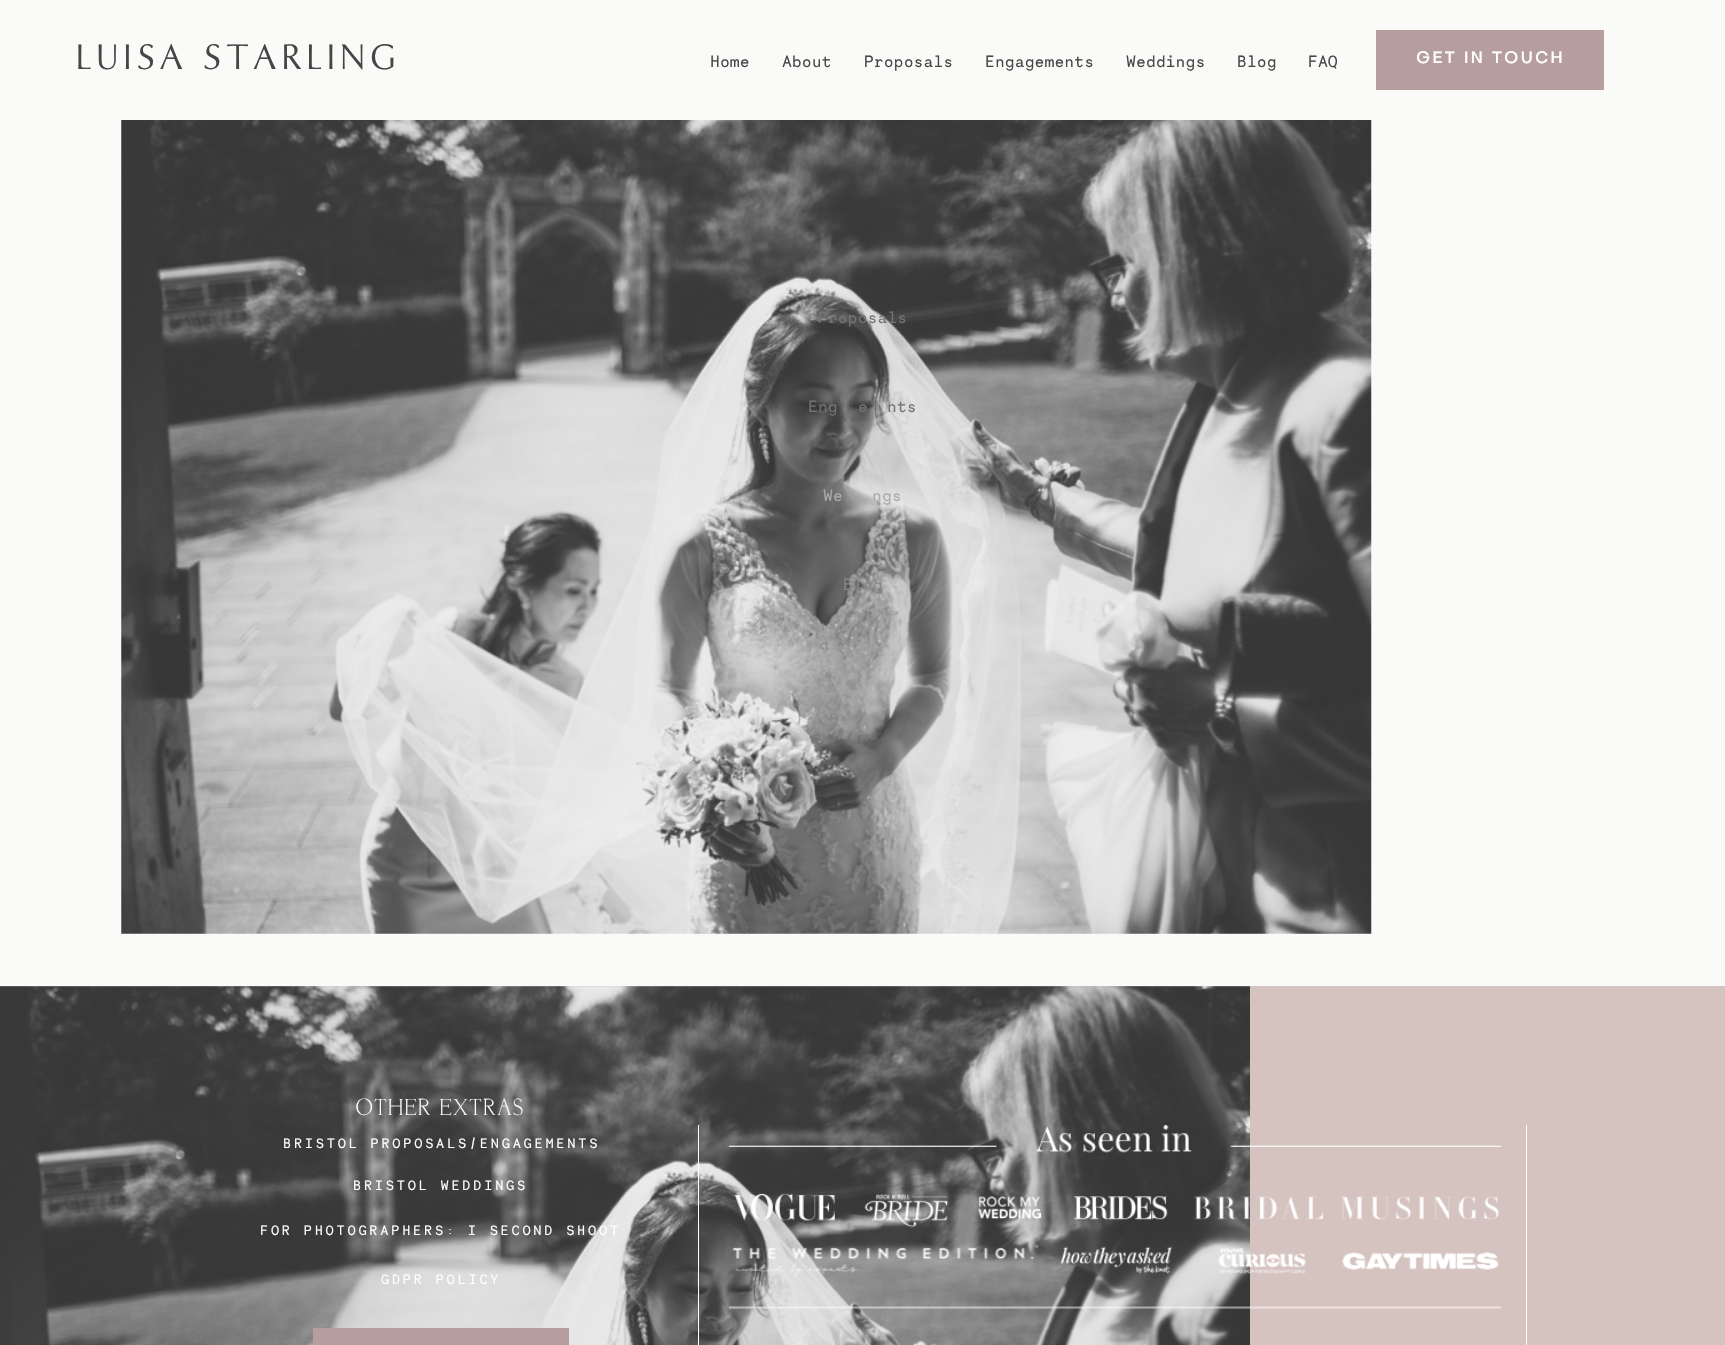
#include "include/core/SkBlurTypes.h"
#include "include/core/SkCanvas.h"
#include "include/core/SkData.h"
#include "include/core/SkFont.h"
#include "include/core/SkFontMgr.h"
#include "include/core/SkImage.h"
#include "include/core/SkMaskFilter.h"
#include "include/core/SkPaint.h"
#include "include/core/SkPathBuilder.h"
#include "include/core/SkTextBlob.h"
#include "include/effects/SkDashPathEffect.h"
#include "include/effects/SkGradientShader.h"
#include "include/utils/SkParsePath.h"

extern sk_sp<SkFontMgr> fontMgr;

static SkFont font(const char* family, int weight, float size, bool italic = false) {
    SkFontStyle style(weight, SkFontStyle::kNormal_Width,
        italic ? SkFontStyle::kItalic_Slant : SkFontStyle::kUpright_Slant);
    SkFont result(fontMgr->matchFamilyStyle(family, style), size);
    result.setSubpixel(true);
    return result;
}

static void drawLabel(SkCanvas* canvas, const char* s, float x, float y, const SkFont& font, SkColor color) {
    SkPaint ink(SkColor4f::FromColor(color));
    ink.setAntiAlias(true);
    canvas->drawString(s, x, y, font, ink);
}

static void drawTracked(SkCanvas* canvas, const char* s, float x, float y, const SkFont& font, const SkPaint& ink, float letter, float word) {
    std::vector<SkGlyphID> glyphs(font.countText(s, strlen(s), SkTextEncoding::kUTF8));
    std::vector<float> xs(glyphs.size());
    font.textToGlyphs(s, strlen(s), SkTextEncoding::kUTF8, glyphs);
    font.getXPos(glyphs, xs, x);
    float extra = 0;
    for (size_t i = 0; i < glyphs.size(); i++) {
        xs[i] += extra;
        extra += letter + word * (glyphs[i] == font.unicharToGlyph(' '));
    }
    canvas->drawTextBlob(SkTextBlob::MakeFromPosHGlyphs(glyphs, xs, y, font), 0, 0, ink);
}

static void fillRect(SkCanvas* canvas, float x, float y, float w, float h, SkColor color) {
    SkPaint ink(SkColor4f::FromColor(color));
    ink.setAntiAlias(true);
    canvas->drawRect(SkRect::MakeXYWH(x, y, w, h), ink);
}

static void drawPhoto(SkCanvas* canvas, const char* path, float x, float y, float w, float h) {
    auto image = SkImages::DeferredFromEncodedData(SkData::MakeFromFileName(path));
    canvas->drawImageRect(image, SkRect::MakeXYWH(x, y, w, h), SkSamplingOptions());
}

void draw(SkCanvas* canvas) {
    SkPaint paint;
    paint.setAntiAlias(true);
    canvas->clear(0xFFFAFAF8);
    SkFont font1 = font("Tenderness", 400, 37.75f);
    paint.setColor(0xFF464646);
    drawTracked(canvas, "LUISA STARLING", 76, 69, font1, paint, 5.7f, 0);
    SkFont font2 = font("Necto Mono", 400, 16.25f);
    drawLabel(canvas, "Home", 710, 67, font2, 0xFF464646);
    drawLabel(canvas, "About", 782, 67, font2, 0xFF464646);
    drawLabel(canvas, "Proposals", 864, 67, font2, 0xFF464646);
    drawLabel(canvas, "Engagements", 985, 67, font2, 0xFF464646);
    drawLabel(canvas, "Weddings", 1126, 67, font2, 0xFF464646);
    drawLabel(canvas, "Blog", 1237, 67, font2, 0xFF464646);
    drawLabel(canvas, "FAQ", 1308, 67, font2, 0xFF464646);
    fillRect(canvas, 1376, 30, 228, 60, 0xFFB79E9E);
    SkFont font3 = font("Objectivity", 500, 16.25f);
    paint.setColor(0xFFFFFFFF);
    drawTracked(canvas, "GET IN TOUCH", 1416, 63, font3, paint, 2, 0);
    drawPhoto(canvas, "assets/img1.png", 121, 120, 1251, 814);
    fillRect(canvas, 0, 986, 1725, 359, 0xFFD5C3C0);
    drawPhoto(canvas, "assets/img2.png", 0, 986, 1250, 359);
    SkFont font4 = font("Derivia", 400, 21.5f);
    drawTracked(canvas, "OTHER EXTRAS", 356, 1115, font4, paint, 1.75f, 0);
    SkFont font5 = font("Necto Mono", 400, 13.5f);
    drawTracked(canvas, "BRISTOL PROPOSALS/ENGAGEMENTS", 283, 1148, font5, paint, 2.7f, 0);
    fillRect(canvas, 698, 1125, 1, 220, 0xFFFFFFFF);
    drawPhoto(canvas, "assets/img3.png", 728, 1125, 773, 184);
    fillRect(canvas, 1526, 1125, 1, 220, 0xFFFFFFFF);
    drawTracked(canvas, "BRISTOL WEDDINGS", 353, 1190, font5, paint, 2.7f, 0);
    drawTracked(canvas, "FOR PHOTOGRAPHERS: I SECOND SHOOT", 260, 1235, font5, paint, 2.7f, 0);
    drawTracked(canvas, "GDPR POLICY", 381, 1284, font5, paint, 2.7f, 0);
    fillRect(canvas, 313, 1328, 256, 17, 0xFFB79E9E);
    drawLabel(canvas, "Proposals", 818, 323, font2, 0xFF737373);
    drawLabel(canvas, "Eng", 808, 412, font2, 0xFF737373);
    drawLabel(canvas, "e", 858, 412, font2, 0xFF737373);
    drawLabel(canvas, "nts", 887, 412, font2, 0xFF737373);
    drawLabel(canvas, "We", 823, 501, font2, 0xFFAAAAAA);
    drawLabel(canvas, "ngs", 872, 501, font2, 0xFFAAAAAA);
    drawLabel(canvas, "Blog", 843, 590, font2, 0xFF868686);
}
